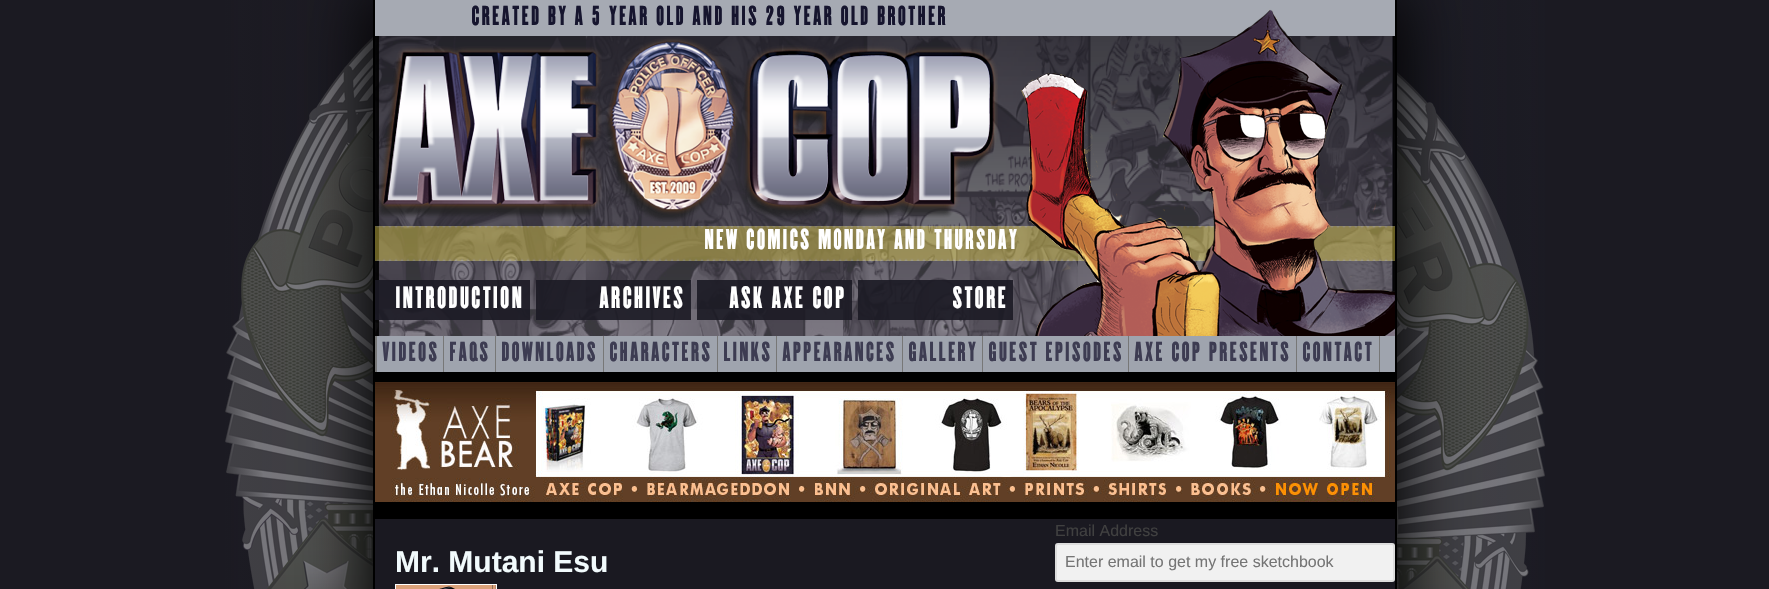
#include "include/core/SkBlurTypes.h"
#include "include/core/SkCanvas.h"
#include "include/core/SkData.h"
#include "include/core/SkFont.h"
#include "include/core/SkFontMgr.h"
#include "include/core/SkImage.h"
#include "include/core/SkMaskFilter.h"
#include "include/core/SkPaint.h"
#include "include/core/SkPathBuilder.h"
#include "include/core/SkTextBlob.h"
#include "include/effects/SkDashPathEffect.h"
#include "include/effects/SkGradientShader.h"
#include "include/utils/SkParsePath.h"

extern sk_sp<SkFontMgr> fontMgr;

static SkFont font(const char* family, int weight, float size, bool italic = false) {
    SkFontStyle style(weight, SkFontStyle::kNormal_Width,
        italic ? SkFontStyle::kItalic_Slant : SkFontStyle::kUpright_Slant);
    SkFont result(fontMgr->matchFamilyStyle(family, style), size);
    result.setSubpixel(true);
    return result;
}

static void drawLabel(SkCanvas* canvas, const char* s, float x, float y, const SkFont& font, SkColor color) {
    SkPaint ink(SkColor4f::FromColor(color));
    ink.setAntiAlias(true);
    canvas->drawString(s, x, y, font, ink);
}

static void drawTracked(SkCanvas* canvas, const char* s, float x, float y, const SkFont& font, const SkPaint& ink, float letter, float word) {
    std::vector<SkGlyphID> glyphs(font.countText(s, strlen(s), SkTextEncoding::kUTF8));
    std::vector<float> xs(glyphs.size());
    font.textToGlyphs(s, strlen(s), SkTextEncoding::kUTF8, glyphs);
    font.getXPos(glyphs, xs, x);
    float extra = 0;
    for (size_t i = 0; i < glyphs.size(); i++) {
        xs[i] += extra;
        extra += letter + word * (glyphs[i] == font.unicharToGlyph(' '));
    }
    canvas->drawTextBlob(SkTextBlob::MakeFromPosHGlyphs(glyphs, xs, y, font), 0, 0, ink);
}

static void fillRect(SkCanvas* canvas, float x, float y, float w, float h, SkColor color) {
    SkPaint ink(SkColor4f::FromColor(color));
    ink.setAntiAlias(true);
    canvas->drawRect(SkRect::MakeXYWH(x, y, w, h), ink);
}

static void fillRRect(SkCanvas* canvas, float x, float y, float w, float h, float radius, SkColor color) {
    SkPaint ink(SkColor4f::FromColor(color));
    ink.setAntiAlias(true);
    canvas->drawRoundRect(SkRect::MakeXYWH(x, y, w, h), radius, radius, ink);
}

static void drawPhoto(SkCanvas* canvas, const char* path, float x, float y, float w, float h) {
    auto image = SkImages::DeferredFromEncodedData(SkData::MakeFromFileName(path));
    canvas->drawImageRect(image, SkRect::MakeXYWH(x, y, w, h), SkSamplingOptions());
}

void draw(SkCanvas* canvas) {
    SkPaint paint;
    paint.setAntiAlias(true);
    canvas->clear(0xFF1B1A22);
    drawPhoto(canvas, "assets/img1.png", 225, 0, 1320, 589);
    paint.setColor(0xFF000000);
    paint.setMaskFilter(SkMaskFilter::MakeBlur(kNormal_SkBlurStyle, 31.5f));
    canvas->drawRect(SkRect::MakeXYWH(366, -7, 1038, 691), paint);
    paint.setMaskFilter(nullptr);
    fillRect(canvas, 375, 519, 1020, 70, 0xFF1A1921);
    fillRect(canvas, 1395, 0, 2, 589, 0xFF000000);
    fillRect(canvas, 373, 0, 2, 589, 0xFF000000);
    drawPhoto(canvas, "assets/img2.png", 375, 36, 1020, 300);
    fillRect(canvas, 375, 0, 1020, 36, 0xFFA6AAB3);
    SkFont font1 = font("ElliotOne", 100, 24);
    paint.setColor(0xFF16152E);
    drawTracked(canvas, "CREATED BY A 5 YEAR OLD AND HIS 29 YEAR OLD BROTHER", 471, 25, font1, paint, 2, 0);
    drawPhoto(canvas, "assets/img3.png", 378, 37, 620, 185);
    drawPhoto(canvas, "assets/img5.png", 375, 226, 1020, 35);
    drawPhoto(canvas, "assets/img4.png", 1020, 9, 375, 327);
    SkFont font2 = font("ElliotOne", 100, 25);
    paint.setColor(0xFFFFFFFF);
    drawTracked(canvas, "NEW COMICS MONDAY AND THURSDAY", 704, 249, font2, paint, 2, 0);
    fillRect(canvas, 375, 280, 155, 40, 0xE61B1A23);
    SkFont font3 = font("ElliotOne", 100, 27);
    drawTracked(canvas, "INTRODUCTION", 395, 308, font3, paint, 2, 0);
    fillRect(canvas, 536, 280, 155, 40, 0xE61B1A23);
    drawTracked(canvas, "ARCHIVES", 599, 308, font3, paint, 2, 0);
    fillRect(canvas, 697, 280, 155, 40, 0xE61B1A23);
    drawTracked(canvas, "ASK AXE COP", 729, 308, font3, paint, 2, 0);
    fillRect(canvas, 858, 280, 155, 40, 0xE61B1A23);
    drawTracked(canvas, "STORE", 952, 308, font3, paint, 2, 0);
    fillRect(canvas, 377, 336, 1018, 36, 0xFF9FA4AE);
    fillRect(canvas, 375, 336, 2, 36, 0xFF777777);
    fillRect(canvas, 443, 336, 1, 36, 0xFF777777);
    paint.setColor(0xFF3D3C52);
    drawTracked(canvas, "VIDEOS", 382, 361, font1, paint, 2, 0);
    fillRect(canvas, 495, 336, 1, 36, 0xFF777777);
    drawTracked(canvas, "FAQS", 449, 361, font1, paint, 2, 0);
    fillRect(canvas, 603, 336, 1, 36, 0xFF777777);
    drawTracked(canvas, "DOWNLOADS", 501, 361, font1, paint, 2, 0);
    fillRect(canvas, 717, 336, 1, 36, 0xFF777777);
    drawTracked(canvas, "CHARACTERS", 609, 361, font1, paint, 2, 0);
    fillRect(canvas, 776, 336, 1, 36, 0xFF777777);
    drawTracked(canvas, "LINKS", 723, 361, font1, paint, 2, 0);
    fillRect(canvas, 902, 336, 1, 36, 0xFF777777);
    drawTracked(canvas, "APPEARANCES", 782, 361, font1, paint, 2, 0);
    fillRect(canvas, 982, 336, 1, 36, 0xFF777777);
    drawTracked(canvas, "GALLERY", 908, 361, font1, paint, 2, 0);
    fillRect(canvas, 1128, 336, 1, 36, 0xFF777777);
    drawTracked(canvas, "GUEST EPISODES", 988, 361, font1, paint, 2, 0);
    fillRect(canvas, 1296, 336, 1, 36, 0xFF777777);
    drawTracked(canvas, "AXE COP PRESENTS", 1134, 361, font1, paint, 2, 0);
    fillRect(canvas, 1379, 336, 1, 36, 0xFF777777);
    drawTracked(canvas, "CONTACT", 1302, 361, font1, paint, 2, 0);
    fillRect(canvas, 375, 372, 1020, 147, 0xFF000000);
    drawPhoto(canvas, "assets/img6.png", 375, 382, 1020, 120);
    SkFont font4 = font("Liberation Sans", 700, 30);
    drawLabel(canvas, "Mr. Mutani Esu", 395, 572, font4, 0xFFF2FBFD);
    drawPhoto(canvas, "assets/img7.png", 396, 585, 100, 4);
    paint.setStroke(true);
    paint.setStrokeWidth(1);
    paint.setColor(0xFFFFFFFF);
    canvas->drawRect(SkRect::MakeXYWH(395.5f, 584.5f, 101, 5), paint);
    SkFont font5 = font("Liberation Sans", 400, 16);
    drawLabel(canvas, "Email Address", 1055, 536, font5, 0xFF404040);
    fillRRect(canvas, 1055, 543, 340, 39, 3, 0xFFF1F1F1);
    paint.setStrokeWidth(2);
    paint.setColor(0x1A333333);
    canvas->drawRoundRect(SkRect::MakeXYWH(1056, 544, 338, 37), 2, 2, paint);
    drawLabel(canvas, "Enter email to get my free sketchbook", 1065, 567, font5, 0xFF757575);
}
